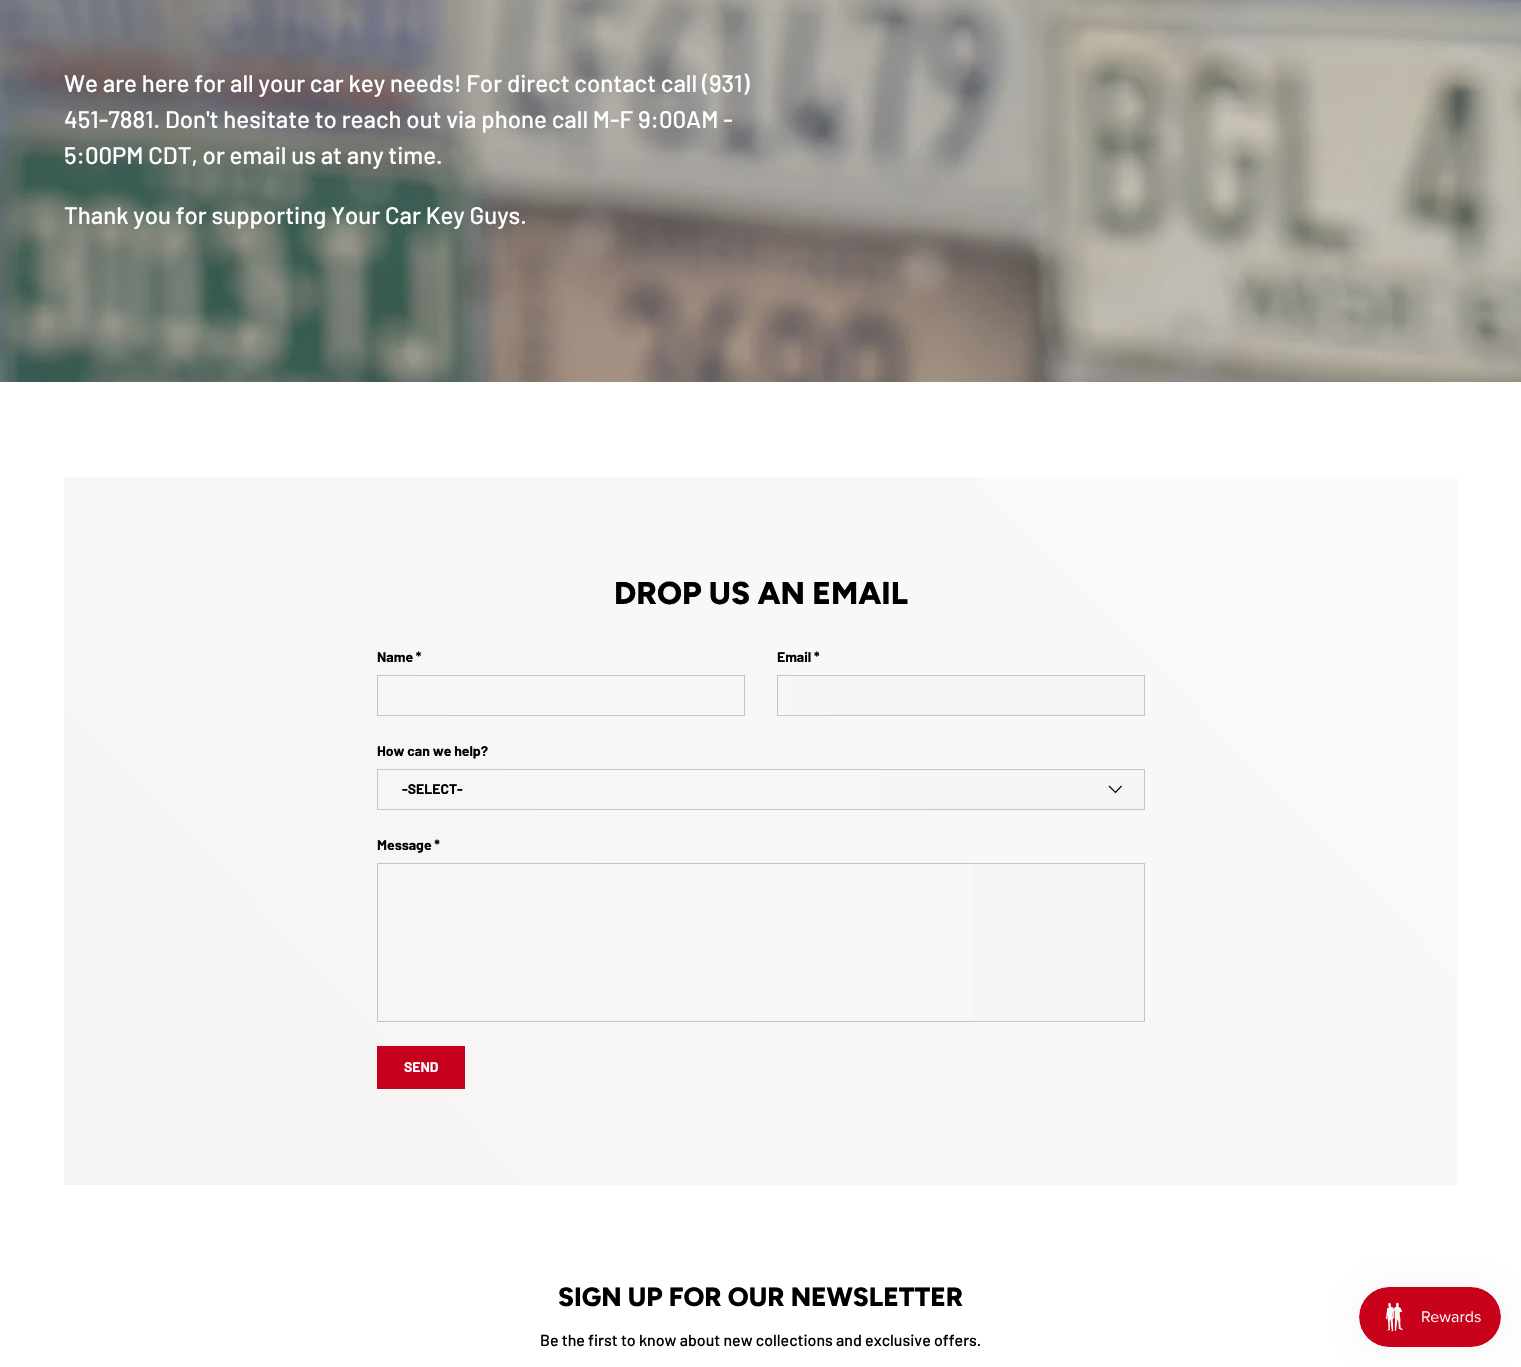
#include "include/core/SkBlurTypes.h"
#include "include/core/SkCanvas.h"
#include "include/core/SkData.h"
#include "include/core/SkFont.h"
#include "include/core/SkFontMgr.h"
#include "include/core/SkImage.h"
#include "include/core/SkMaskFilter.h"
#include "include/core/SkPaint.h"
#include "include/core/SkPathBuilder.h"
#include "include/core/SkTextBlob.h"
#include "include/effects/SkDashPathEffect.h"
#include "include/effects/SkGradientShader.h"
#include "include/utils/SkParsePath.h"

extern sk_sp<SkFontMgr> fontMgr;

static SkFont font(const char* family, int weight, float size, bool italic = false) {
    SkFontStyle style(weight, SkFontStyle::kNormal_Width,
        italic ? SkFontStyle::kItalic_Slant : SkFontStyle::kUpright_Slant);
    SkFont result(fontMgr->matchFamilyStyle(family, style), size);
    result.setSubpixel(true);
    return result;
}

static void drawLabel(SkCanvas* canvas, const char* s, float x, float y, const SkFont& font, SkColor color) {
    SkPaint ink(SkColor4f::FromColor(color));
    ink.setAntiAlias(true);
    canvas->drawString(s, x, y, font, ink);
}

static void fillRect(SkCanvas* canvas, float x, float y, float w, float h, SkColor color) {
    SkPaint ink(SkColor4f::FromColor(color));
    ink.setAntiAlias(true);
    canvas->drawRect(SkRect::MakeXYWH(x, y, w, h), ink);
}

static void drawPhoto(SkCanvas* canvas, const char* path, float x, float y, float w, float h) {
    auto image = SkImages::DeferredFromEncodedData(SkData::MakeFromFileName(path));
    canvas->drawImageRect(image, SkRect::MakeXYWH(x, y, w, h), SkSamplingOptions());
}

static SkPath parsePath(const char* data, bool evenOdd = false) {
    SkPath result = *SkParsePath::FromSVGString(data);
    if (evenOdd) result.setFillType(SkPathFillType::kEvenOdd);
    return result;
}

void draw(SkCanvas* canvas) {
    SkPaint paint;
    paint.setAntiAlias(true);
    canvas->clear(0xFFFFFFFF);
    drawPhoto(canvas, "assets/img1.png", 0, 0, 1521, 382);
    SkFont font1 = font("Barlow", 500, 24);
    drawLabel(canvas, "We are here for all your car key needs! For direct contact call (931)", 64, 92, font1, 0xFFFFFFFF);
    drawLabel(canvas, "451-7881. Don't hesitate to reach out via phone call M-F 9:00AM -", 64, 128, font1, 0xFFFFFFFF);
    drawLabel(canvas, "5:00PM CDT, or email us at any time.", 64, 164, font1, 0xFFFFFFFF);
    drawLabel(canvas, "Thank you for supporting Your Car Key Guys.", 64, 224, font1, 0xFFFFFFFF);
    {
        const SkColor colors[] = {0xFFF5F5F5, 0xFFF9F9F9};
        const float stops[] = {0.13f, 0.86f};
        const SkPoint ends[] = {{223, 1350}, {1298, 312}};
        paint.setShader(SkGradientShader::MakeLinear(ends, colors, stops, 2, SkTileMode::kClamp));
        paint.setAlpha(255);
    }
    canvas->drawRect(SkRect::MakeXYWH(64, 477, 1393, 708), paint);
    SkFont font2 = font("Figtree", 800, 31.6f);
    drawLabel(canvas, "DROP US AN EMAIL", 614, 604, font2, 0xFF000000);
    SkFont font3 = font("Barlow", 700, 14);
    drawLabel(canvas, "Name *", 377, 662, font3, 0xFF000000);
    paint.setStroke(true);
    paint.setStrokeWidth(1);
    paint.setShader(nullptr);
    paint.setColor(0xFFC5C5C5);
    canvas->drawRect(SkRect::MakeXYWH(377.5f, 675.5f, 367, 40), paint);
    drawLabel(canvas, "Email *", 777, 662, font3, 0xFF000000);
    fillRect(canvas, 791, 676, 353, 39, 0xFFF5F5F5);
    paint.setColor(0xFFC6C6C6);
    canvas->drawRect(SkRect::MakeXYWH(777.5f, 675.5f, 367, 40), paint);
    drawLabel(canvas, "How can we help?", 377, 756, font3, 0xFF000000);
    fillRect(canvas, 881, 770, 263, 39, 0xFFF5F5F5);
    canvas->drawRect(SkRect::MakeXYWH(377.5f, 769.5f, 767, 40), paint);
    drawLabel(canvas, "-SELECT-", 402, 794, font3, 0xFF000000);
    paint.setStrokeWidth(1.2f);
    paint.setColor(0xFF000000);
    canvas->drawPath(parsePath("M1121.5 786L1115.5 792.5L1109 786"), paint);
    drawLabel(canvas, "Message *", 377, 850, font3, 0xFF000000);
    fillRect(canvas, 972, 864, 172, 157, 0xFFF5F5F5);
    paint.setStrokeWidth(1);
    paint.setColor(0xFFC5C5C5);
    canvas->drawRect(SkRect::MakeXYWH(377.5f, 863.5f, 767, 158), paint);
    paint.setStroke(false);
    {
        const SkColor colors[] = {0xFFD82C43, 0xFFC7001B, 0xFFC7001B};
        const float stops[] = {0.6f, 0.6f, 1};
        const SkPoint ends[] = {{209, 1036}, {461, 1099}};
        paint.setShader(SkGradientShader::MakeLinear(ends, colors, stops, 3, SkTileMode::kClamp));
        paint.setAlpha(255);
    }
    canvas->drawRect(SkRect::MakeXYWH(378, 1047, 86, 41), paint);
    paint.setStroke(true);
    paint.setShader(nullptr);
    paint.setColor(0xFFC7001B);
    canvas->drawRect(SkRect::MakeXYWH(377.5f, 1046.5f, 87, 42), paint);
    drawLabel(canvas, "SEND", 404, 1072, font3, 0xFFFFFFFF);
    SkFont font4 = font("Figtree", 800, 26.4f);
    drawLabel(canvas, "SIGN UP FOR OUR NEWSLETTER", 558, 1306, font4, 0xFF000000);
    SkFont font5 = font("Barlow", 500, 16);
    drawLabel(canvas, "Be the first to know about new collections and exclusive offers.", 540, 1346, font5, 0xFF000000);
    paint.setStroke(false);
    paint.setColor(0x0D000000);
    paint.setMaskFilter(SkMaskFilter::MakeBlur(kNormal_SkBlurStyle, 12.5f));
    canvas->drawRoundRect(SkRect::MakeXYWH(1359, 1287, 142, 60), 30, 30, paint);
    paint.setMaskFilter(nullptr);
    drawPhoto(canvas, "assets/img2.png", 1359, 1287, 142, 60);
}
